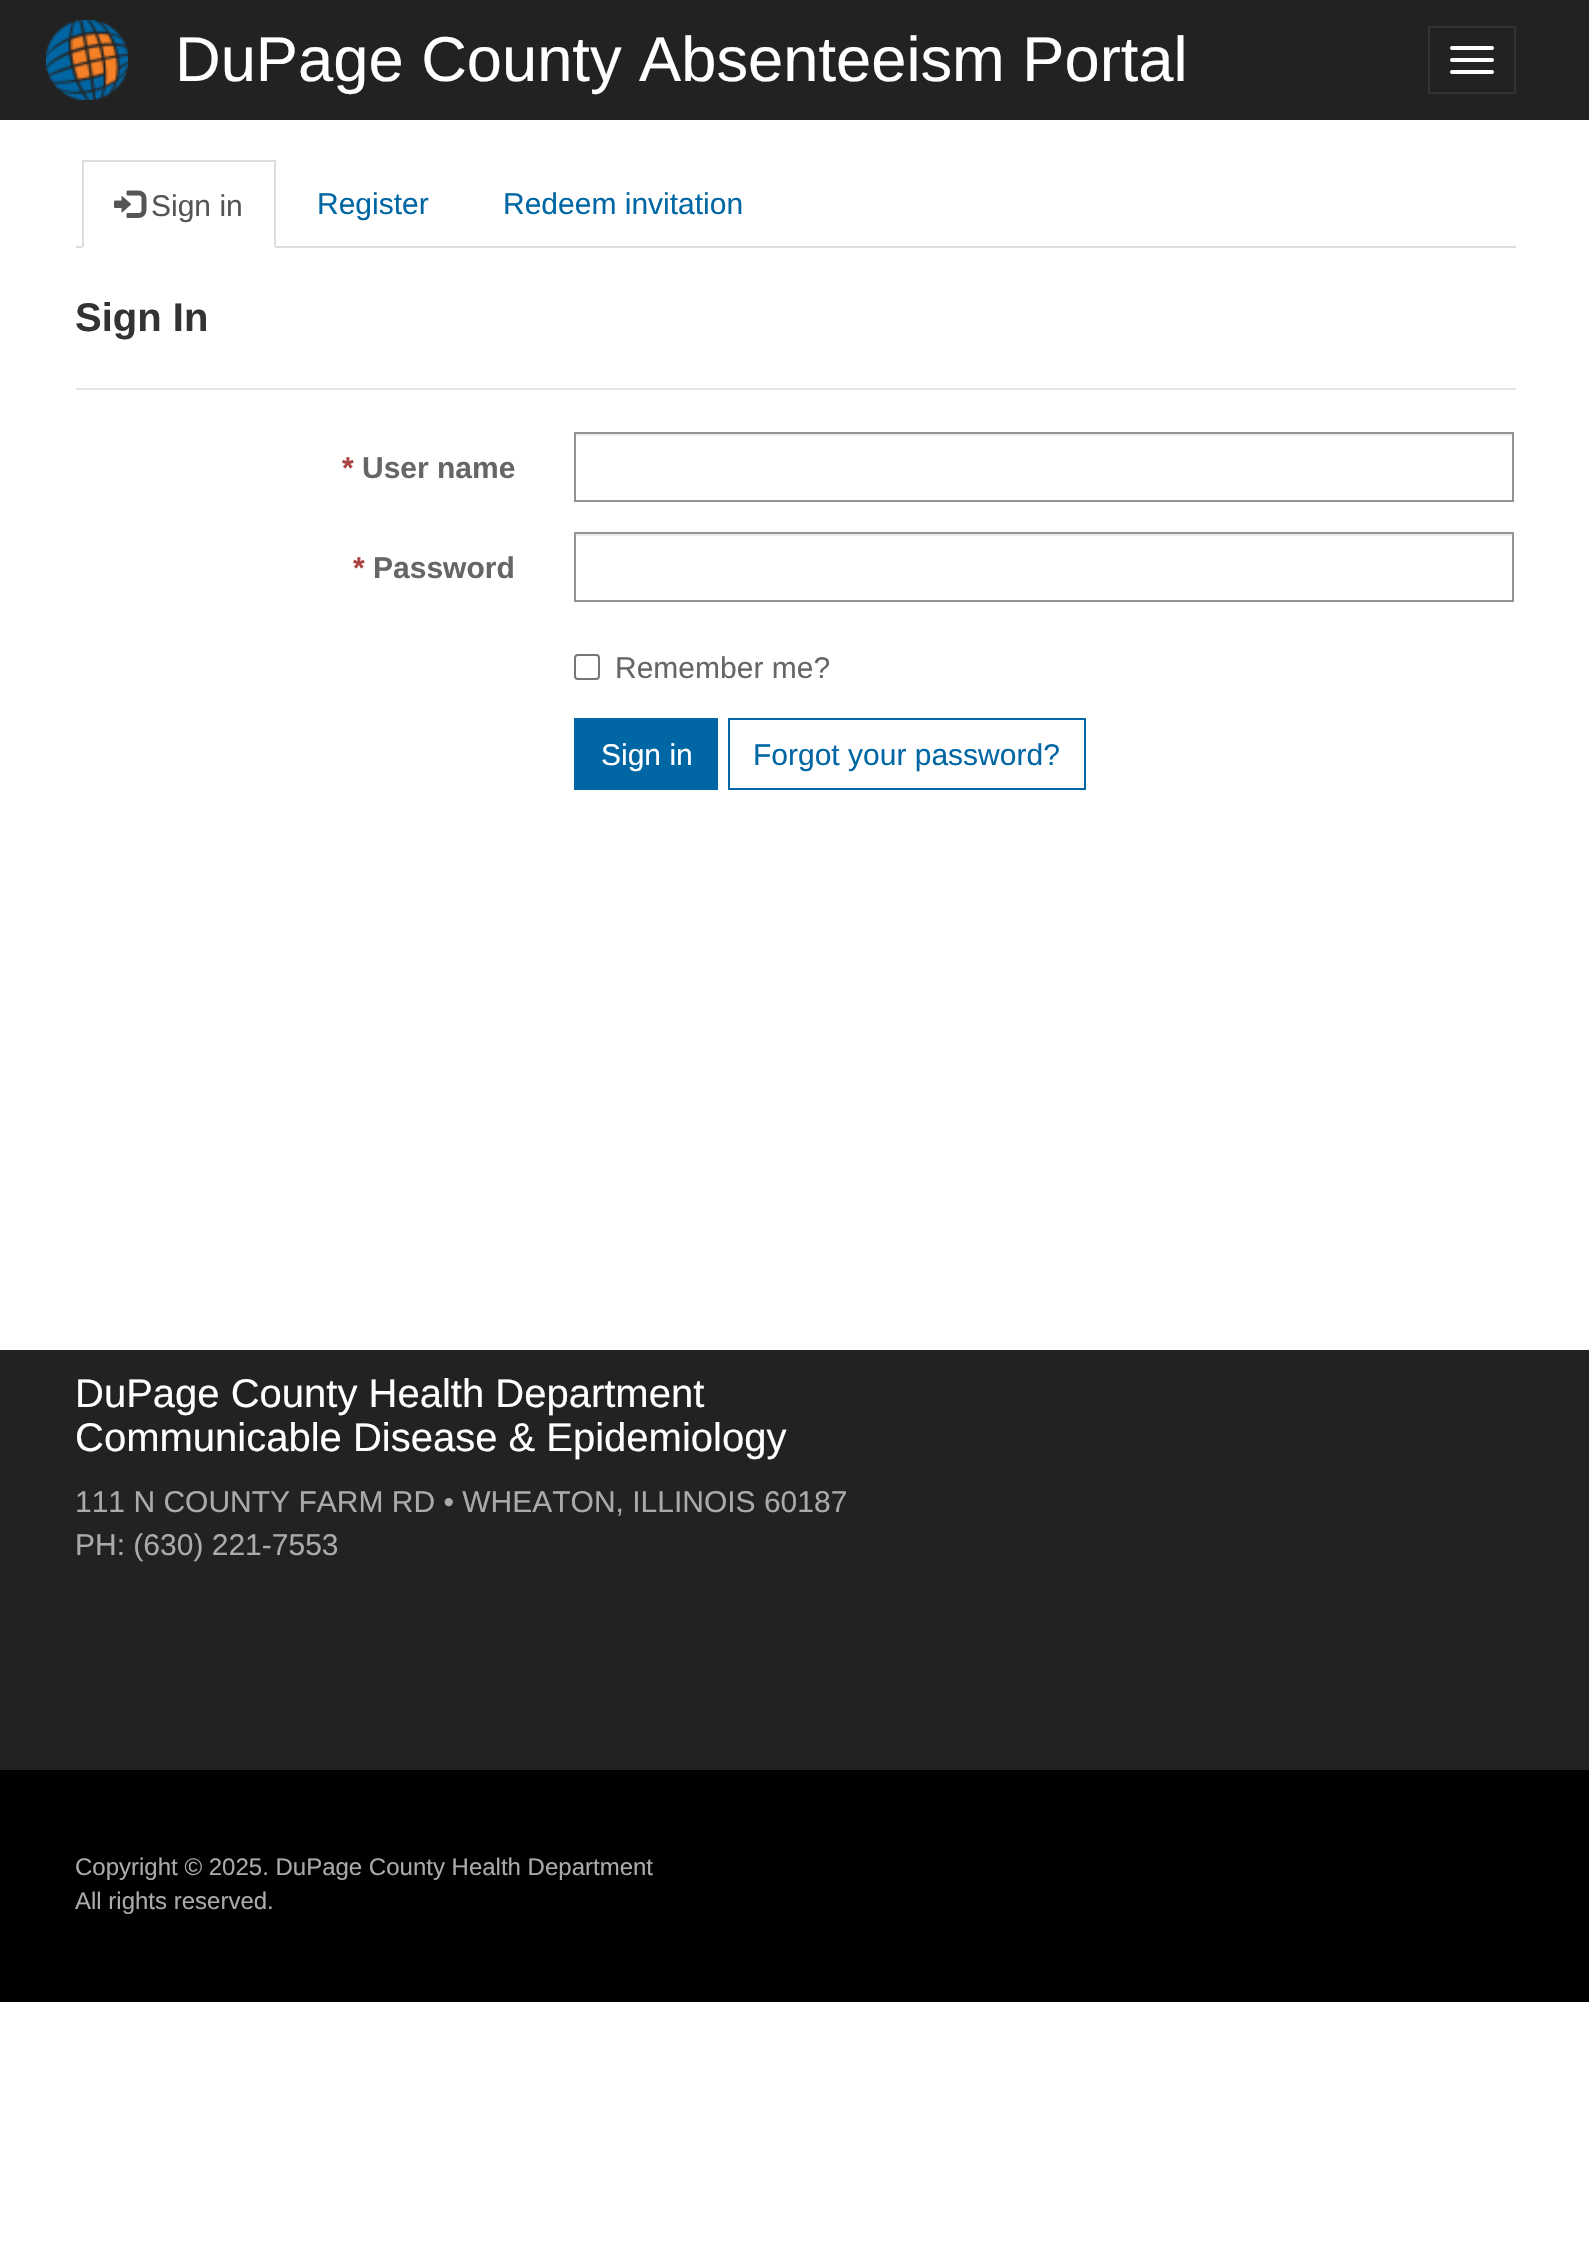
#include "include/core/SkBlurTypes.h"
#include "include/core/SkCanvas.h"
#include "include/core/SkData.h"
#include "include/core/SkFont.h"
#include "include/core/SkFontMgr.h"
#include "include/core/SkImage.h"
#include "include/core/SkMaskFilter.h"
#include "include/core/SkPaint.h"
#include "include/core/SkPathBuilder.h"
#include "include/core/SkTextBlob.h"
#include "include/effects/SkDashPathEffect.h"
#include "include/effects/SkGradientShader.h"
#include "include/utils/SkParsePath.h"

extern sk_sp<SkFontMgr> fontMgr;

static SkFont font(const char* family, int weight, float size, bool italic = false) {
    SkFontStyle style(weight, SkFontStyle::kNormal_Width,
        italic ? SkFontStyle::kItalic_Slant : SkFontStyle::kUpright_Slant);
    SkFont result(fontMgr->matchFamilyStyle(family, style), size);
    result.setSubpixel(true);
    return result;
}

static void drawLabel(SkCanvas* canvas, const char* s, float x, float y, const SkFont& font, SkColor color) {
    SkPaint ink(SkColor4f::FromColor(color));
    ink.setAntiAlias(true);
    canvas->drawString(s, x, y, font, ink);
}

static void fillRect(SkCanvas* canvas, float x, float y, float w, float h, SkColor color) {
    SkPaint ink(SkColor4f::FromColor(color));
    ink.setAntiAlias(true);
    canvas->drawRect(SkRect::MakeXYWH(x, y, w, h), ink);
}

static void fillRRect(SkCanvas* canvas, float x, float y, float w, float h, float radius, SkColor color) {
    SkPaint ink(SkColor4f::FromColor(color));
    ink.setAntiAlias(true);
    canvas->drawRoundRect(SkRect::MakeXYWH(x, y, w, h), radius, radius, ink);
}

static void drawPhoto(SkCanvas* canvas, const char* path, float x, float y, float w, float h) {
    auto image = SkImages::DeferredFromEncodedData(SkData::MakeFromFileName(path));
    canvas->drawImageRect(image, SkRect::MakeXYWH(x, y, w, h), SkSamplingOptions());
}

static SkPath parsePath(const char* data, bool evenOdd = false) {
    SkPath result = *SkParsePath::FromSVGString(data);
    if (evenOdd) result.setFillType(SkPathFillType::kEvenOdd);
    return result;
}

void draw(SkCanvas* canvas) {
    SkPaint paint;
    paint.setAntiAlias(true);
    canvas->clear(0xFFFFFFFF);
    fillRect(canvas, 0, 0, 1589, 120, 0xFF232222);
    drawPhoto(canvas, "assets/img1.png", 46, 20, 82, 80);
    SkFont font1 = font("Liberation Sans", 400, 63.25f);
    drawLabel(canvas, "DuPage County Absenteeism Portal", 175, 81, font1, 0xFFFFFFFF);
    paint.setStroke(true);
    paint.setStrokeWidth(2);
    paint.setColor(0xFF333333);
    canvas->drawRect(SkRect::MakeXYWH(1429, 27, 86, 66), paint);
    fillRRect(canvas, 1450, 46, 44, 4, 2, 0xFFFFFFFF);
    fillRRect(canvas, 1450, 58, 44, 4, 2, 0xFFFFFFFF);
    fillRRect(canvas, 1450, 70, 44, 4, 2, 0xFFFFFFFF);
    fillRect(canvas, 76, 246, 1440, 2, 0xFFDDDDDD);
    fillRect(canvas, 82, 246, 194, 2, 0xFFFFFFFF);
    fillRect(canvas, 82, 160, 194, 2, 0xFFDDDDDD);
    paint.setStroke(false);
    paint.setColor(0xFFDDDDDD);
    canvas->drawPath(parsePath("M276 160V248L274 246V162Z"), paint);
    canvas->drawPath(parsePath("M82 248V160L84 162V246Z"), paint);
    drawPhoto(canvas, "assets/img2.png", 114, 190, 33, 28);
    SkFont font2 = font("Liberation Sans", 400, 30);
    drawLabel(canvas, "Sign in", 151, 216, font2, 0xFF555555);
    drawLabel(canvas, "Register", 317, 214, font2, 0xFF0066A4);
    drawLabel(canvas, "Redeem invitation", 503, 214, font2, 0xFF0066A4);
    fillRect(canvas, 76, 388, 1440, 2, 0xFFE5E5E5);
    SkFont font3 = font("Liberation Sans", 700, 40);
    drawLabel(canvas, "Sign In", 75, 331, font3, 0xFF333333);
    SkFont font4 = font("Liberation Sans", 700, 30);
    drawLabel(canvas, "*", 342, 478, font4, 0xFFA94442);
    drawLabel(canvas, "User name", 362, 478, font4, 0xFF666666);
    fillRect(canvas, 576, 434, 936, 2, 0xFFECECEC);
    paint.setStroke(true);
    paint.setColor(0xFF949494);
    canvas->drawRect(SkRect::MakeXYWH(575, 433, 938, 68), paint);
    drawLabel(canvas, "*", 353, 578, font4, 0xFFA94442);
    drawLabel(canvas, "Password", 373, 578, font4, 0xFF666666);
    fillRect(canvas, 576, 534, 936, 2, 0xFFECECEC);
    canvas->drawRect(SkRect::MakeXYWH(575, 533, 938, 68), paint);
    paint.setColor(0xFF767676);
    canvas->drawRoundRect(SkRect::MakeXYWH(575, 655, 24, 24), 3, 3, paint);
    drawLabel(canvas, "Remember me?", 615, 678, font2, 0xFF666666);
    fillRect(canvas, 574, 718, 144, 72, 0xFF0066A4);
    drawLabel(canvas, "Sign in", 601, 765, font2, 0xFFFFFFFF);
    paint.setColor(0xFF0066A4);
    canvas->drawRect(SkRect::MakeXYWH(729, 719, 356, 70), paint);
    drawLabel(canvas, "Forgot your password?", 753, 765, font2, 0xFF0066A4);
    fillRect(canvas, 0, 1350, 1589, 420, 0xFF232222);
    SkFont font5 = font("Liberation Sans", 400, 40);
    drawLabel(canvas, "DuPage County Health Department", 75, 1407, font5, 0xFFFFFFFF);
    drawLabel(canvas, "Communicable Disease & Epidemiology", 75, 1451, font5, 0xFFFFFFFF);
    drawLabel(canvas, "111 N COUNTY FARM RD • WHEATON, ILLINOIS 60187", 75, 1512, font2, 0xFFAAAAAA);
    drawLabel(canvas, "PH: (630) 221-7553", 75, 1555, font2, 0xFFAAAAAA);
    fillRect(canvas, 0, 1770, 1589, 232, 0xFF000000);
    SkFont font6 = font("Liberation Sans", 400, 24);
    drawLabel(canvas, "Copyright © 2025. DuPage County Health Department", 75, 1875, font6, 0xFFAAAAAA);
    drawLabel(canvas, "All rights reserved.", 75, 1909, font6, 0xFFAAAAAA);
}
